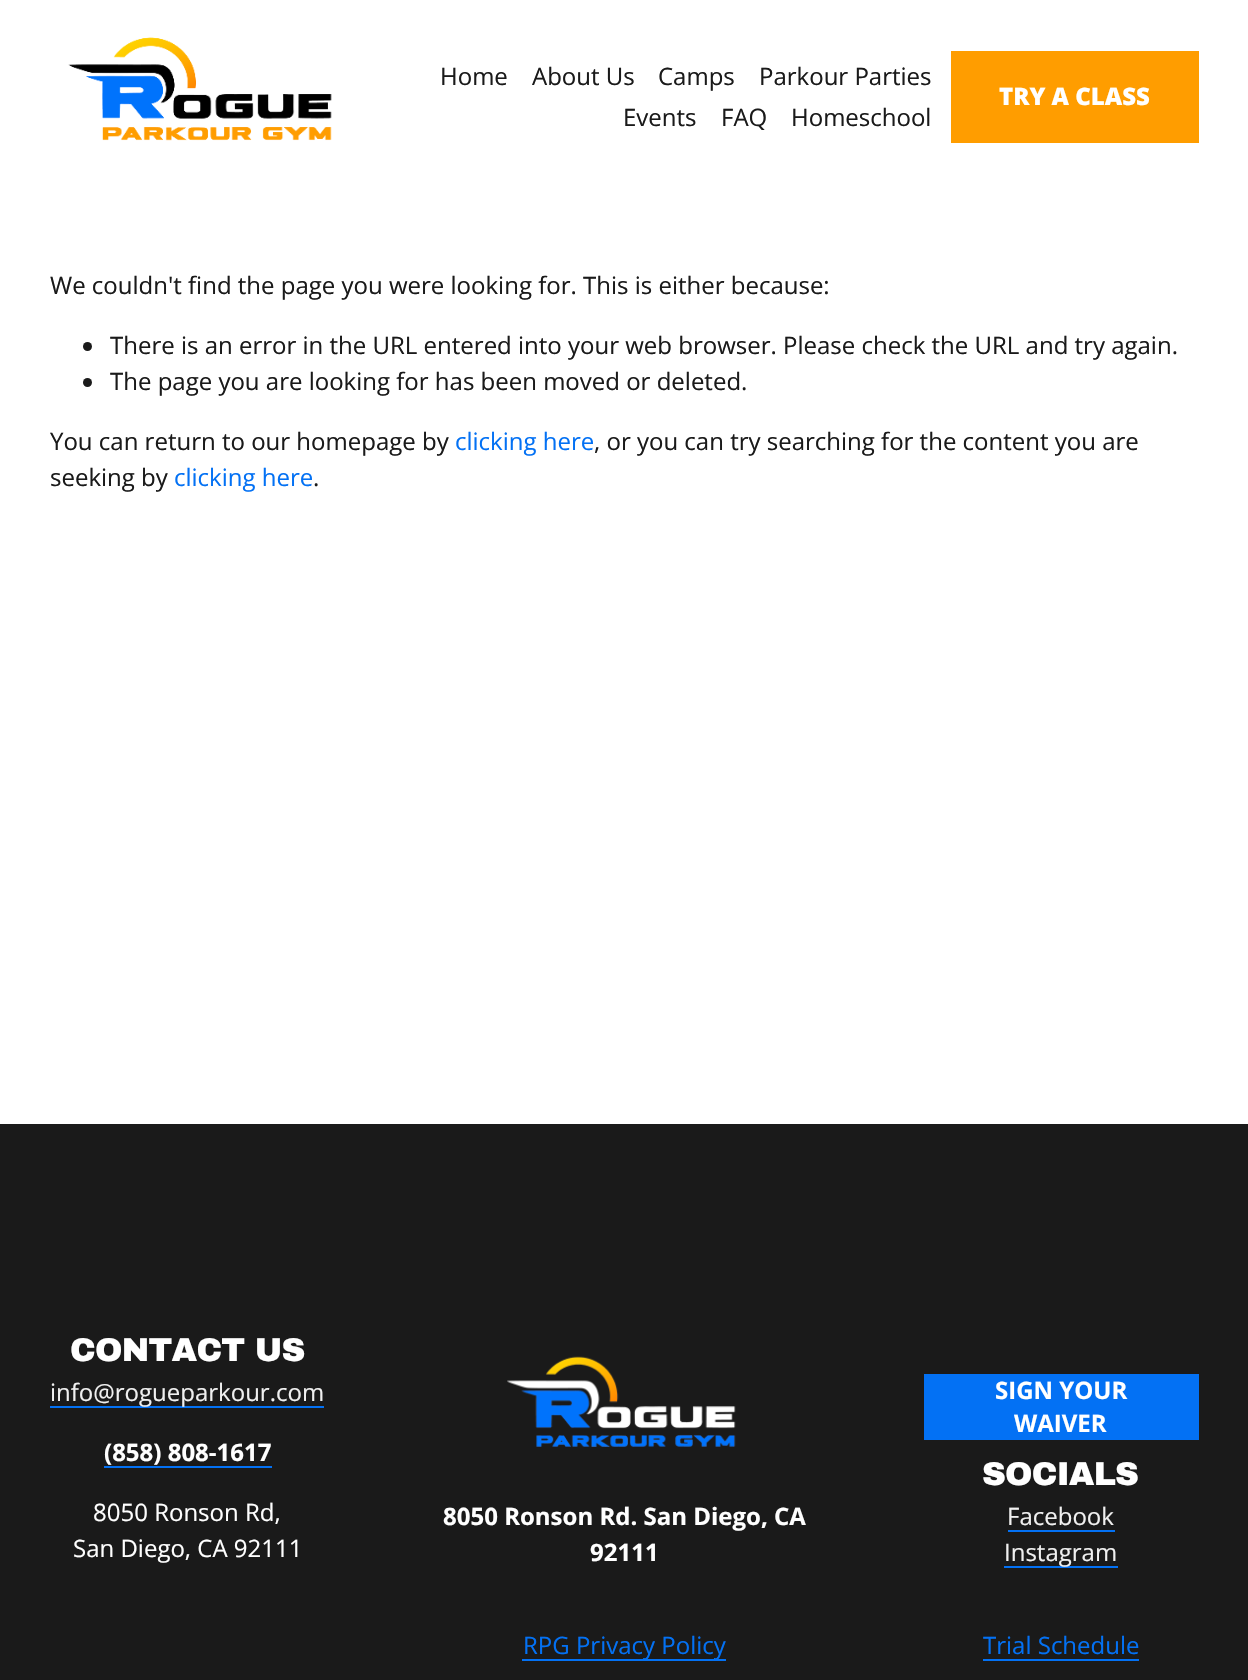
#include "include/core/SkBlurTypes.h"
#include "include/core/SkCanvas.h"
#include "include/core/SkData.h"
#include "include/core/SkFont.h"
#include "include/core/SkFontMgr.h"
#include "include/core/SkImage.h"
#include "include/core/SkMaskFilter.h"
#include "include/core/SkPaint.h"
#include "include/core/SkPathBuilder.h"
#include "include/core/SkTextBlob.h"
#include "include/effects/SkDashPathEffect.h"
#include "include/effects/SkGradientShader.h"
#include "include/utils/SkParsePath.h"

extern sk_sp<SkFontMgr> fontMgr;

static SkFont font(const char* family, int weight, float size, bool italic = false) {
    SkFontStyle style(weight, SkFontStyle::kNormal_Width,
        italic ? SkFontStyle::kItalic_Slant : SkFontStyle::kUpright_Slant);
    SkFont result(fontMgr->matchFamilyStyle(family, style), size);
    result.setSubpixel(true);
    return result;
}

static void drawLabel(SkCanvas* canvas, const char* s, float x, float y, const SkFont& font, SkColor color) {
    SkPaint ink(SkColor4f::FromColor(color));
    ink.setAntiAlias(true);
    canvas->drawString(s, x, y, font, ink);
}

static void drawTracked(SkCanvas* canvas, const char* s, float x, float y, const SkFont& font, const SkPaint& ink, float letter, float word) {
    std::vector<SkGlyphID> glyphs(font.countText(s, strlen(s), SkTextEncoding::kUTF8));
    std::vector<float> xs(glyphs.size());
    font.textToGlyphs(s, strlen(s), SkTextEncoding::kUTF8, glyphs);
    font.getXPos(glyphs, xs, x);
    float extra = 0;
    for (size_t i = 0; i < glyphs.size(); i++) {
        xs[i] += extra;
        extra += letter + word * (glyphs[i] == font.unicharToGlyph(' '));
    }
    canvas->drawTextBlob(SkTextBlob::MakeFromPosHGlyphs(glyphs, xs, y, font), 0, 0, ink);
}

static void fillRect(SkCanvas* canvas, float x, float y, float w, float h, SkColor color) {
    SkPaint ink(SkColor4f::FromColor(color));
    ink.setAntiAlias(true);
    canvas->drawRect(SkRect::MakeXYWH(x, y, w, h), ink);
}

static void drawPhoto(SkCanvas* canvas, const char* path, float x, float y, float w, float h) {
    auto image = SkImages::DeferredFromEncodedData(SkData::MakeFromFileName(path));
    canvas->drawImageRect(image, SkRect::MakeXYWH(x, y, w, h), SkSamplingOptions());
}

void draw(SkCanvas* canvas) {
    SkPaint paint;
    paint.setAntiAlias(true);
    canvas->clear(0xFFFFFFFF);
    drawPhoto(canvas, "assets/img1.png", 68, 37, 264, 104);
    SkFont font1 = font("Open Sans", 400, 24);
    drawLabel(canvas, "Home", 440, 85, font1, 0xFF1A1A1A);
    drawLabel(canvas, "About Us", 532, 85, font1, 0xFF1A1A1A);
    drawLabel(canvas, "Camps", 658, 85, font1, 0xFF1A1A1A);
    drawLabel(canvas, "Parkour Parties", 759, 85, font1, 0xFF1A1A1A);
    drawLabel(canvas, "Events", 623, 126, font1, 0xFF1A1A1A);
    drawLabel(canvas, "FAQ", 721, 126, font1, 0xFF1A1A1A);
    drawLabel(canvas, "Homeschool", 791, 126, font1, 0xFF1A1A1A);
    fillRect(canvas, 951, 51, 248, 92, 0xFFFF9D00);
    SkFont font2 = font("Open Sans", 800, 24);
    drawLabel(canvas, "TRY A CLASS", 999, 105, font2, 0xFFFFFFFF);
    drawLabel(canvas, "We couldn't find the page you were looking for. This is either because:", 50, 294, font1, 0xFF1A1A1A);
    paint.setColor(0xFF1A1A1A);
    canvas->drawCircle(87.5f, 346.5f, 4.5f, paint);
    drawLabel(canvas, "There is an error in the URL entered into your web browser. Please check the URL and try again.", 110, 354, font1, 0xFF1A1A1A);
    canvas->drawCircle(87.5f, 382.5f, 4.5f, paint);
    drawLabel(canvas, "The page you are looking for has been moved or deleted.", 110, 390, font1, 0xFF1A1A1A);
    drawLabel(canvas, "You can return to our homepage by", 50, 450, font1, 0xFF1A1A1A);
    drawLabel(canvas, "clicking here", 455, 450, font1, 0xFF0371F4);
    drawLabel(canvas, ", or you can try searching for the content you are", 594, 450, font1, 0xFF1A1A1A);
    drawLabel(canvas, "seeking by", 50, 486, font1, 0xFF1A1A1A);
    drawLabel(canvas, "clicking here", 174, 486, font1, 0xFF0371F4);
    drawLabel(canvas, ".", 313, 486, font1, 0xFF1A1A1A);
    fillRect(canvas, 0, 1124, 1248, 556, 0xFF1A1A1A);
    SkFont font3 = font("Archivo Black", 900, 33);
    paint.setColor(0xFFFFFFFF);
    drawTracked(canvas, "CONTACT US", 70, 1361, font3, paint, -0.75f, 0);
    fillRect(canvas, 50, 1406, 274, 2, 0xFF0371F4);
    drawLabel(canvas, "info@rogueparkour.com", 50, 1401, font1, 0xFFF0F0F0);
    SkFont font4 = font("Open Sans", 700, 24);
    drawLabel(canvas, "(858) 808-1617", 104, 1461, font4, 0xFFFFFFFF);
    fillRect(canvas, 104, 1466, 168, 2, 0xFF0371F4);
    drawLabel(canvas, "8050 Ronson Rd,", 93, 1521, font1, 0xFFFFFFFF);
    drawLabel(canvas, "San Diego, CA 92111", 73, 1557, font1, 0xFFFFFFFF);
    drawPhoto(canvas, "assets/img2.png", 507, 1356, 229, 91);
    fillRect(canvas, 924, 1374, 275, 66, 0xFF0371F4);
    drawLabel(canvas, "SIGN YOUR", 995, 1399, font4, 0xFFFFFFFF);
    drawLabel(canvas, "WAIVER", 1014, 1432, font4, 0xFFFFFFFF);
    drawTracked(canvas, "SOCIALS", 982, 1485, font3, paint, -0.75f, 0);
    drawLabel(canvas, "8050 Ronson Rd. San Diego, CA", 443, 1525, font4, 0xFFFFFFFF);
    drawLabel(canvas, "92111", 590, 1561, font4, 0xFFFFFFFF);
    drawLabel(canvas, "Facebook", 1007, 1525, font1, 0xFFF0F0F0);
    fillRect(canvas, 1008, 1530, 107, 2, 0xFF0371F4);
    fillRect(canvas, 1004, 1566, 114, 2, 0xFF0371F4);
    drawLabel(canvas, "Instagram", 1004, 1561, font1, 0xFFF0F0F0);
    fillRect(canvas, 522, 1659, 204, 2, 0xFF0371F4);
    drawLabel(canvas, "RPG Privacy Policy", 523, 1654, font1, 0xFF0371F4);
    drawLabel(canvas, "Trial Schedule", 983, 1654, font1, 0xFF0371F4);
    fillRect(canvas, 983, 1659, 156, 2, 0xFF0371F4);
}
